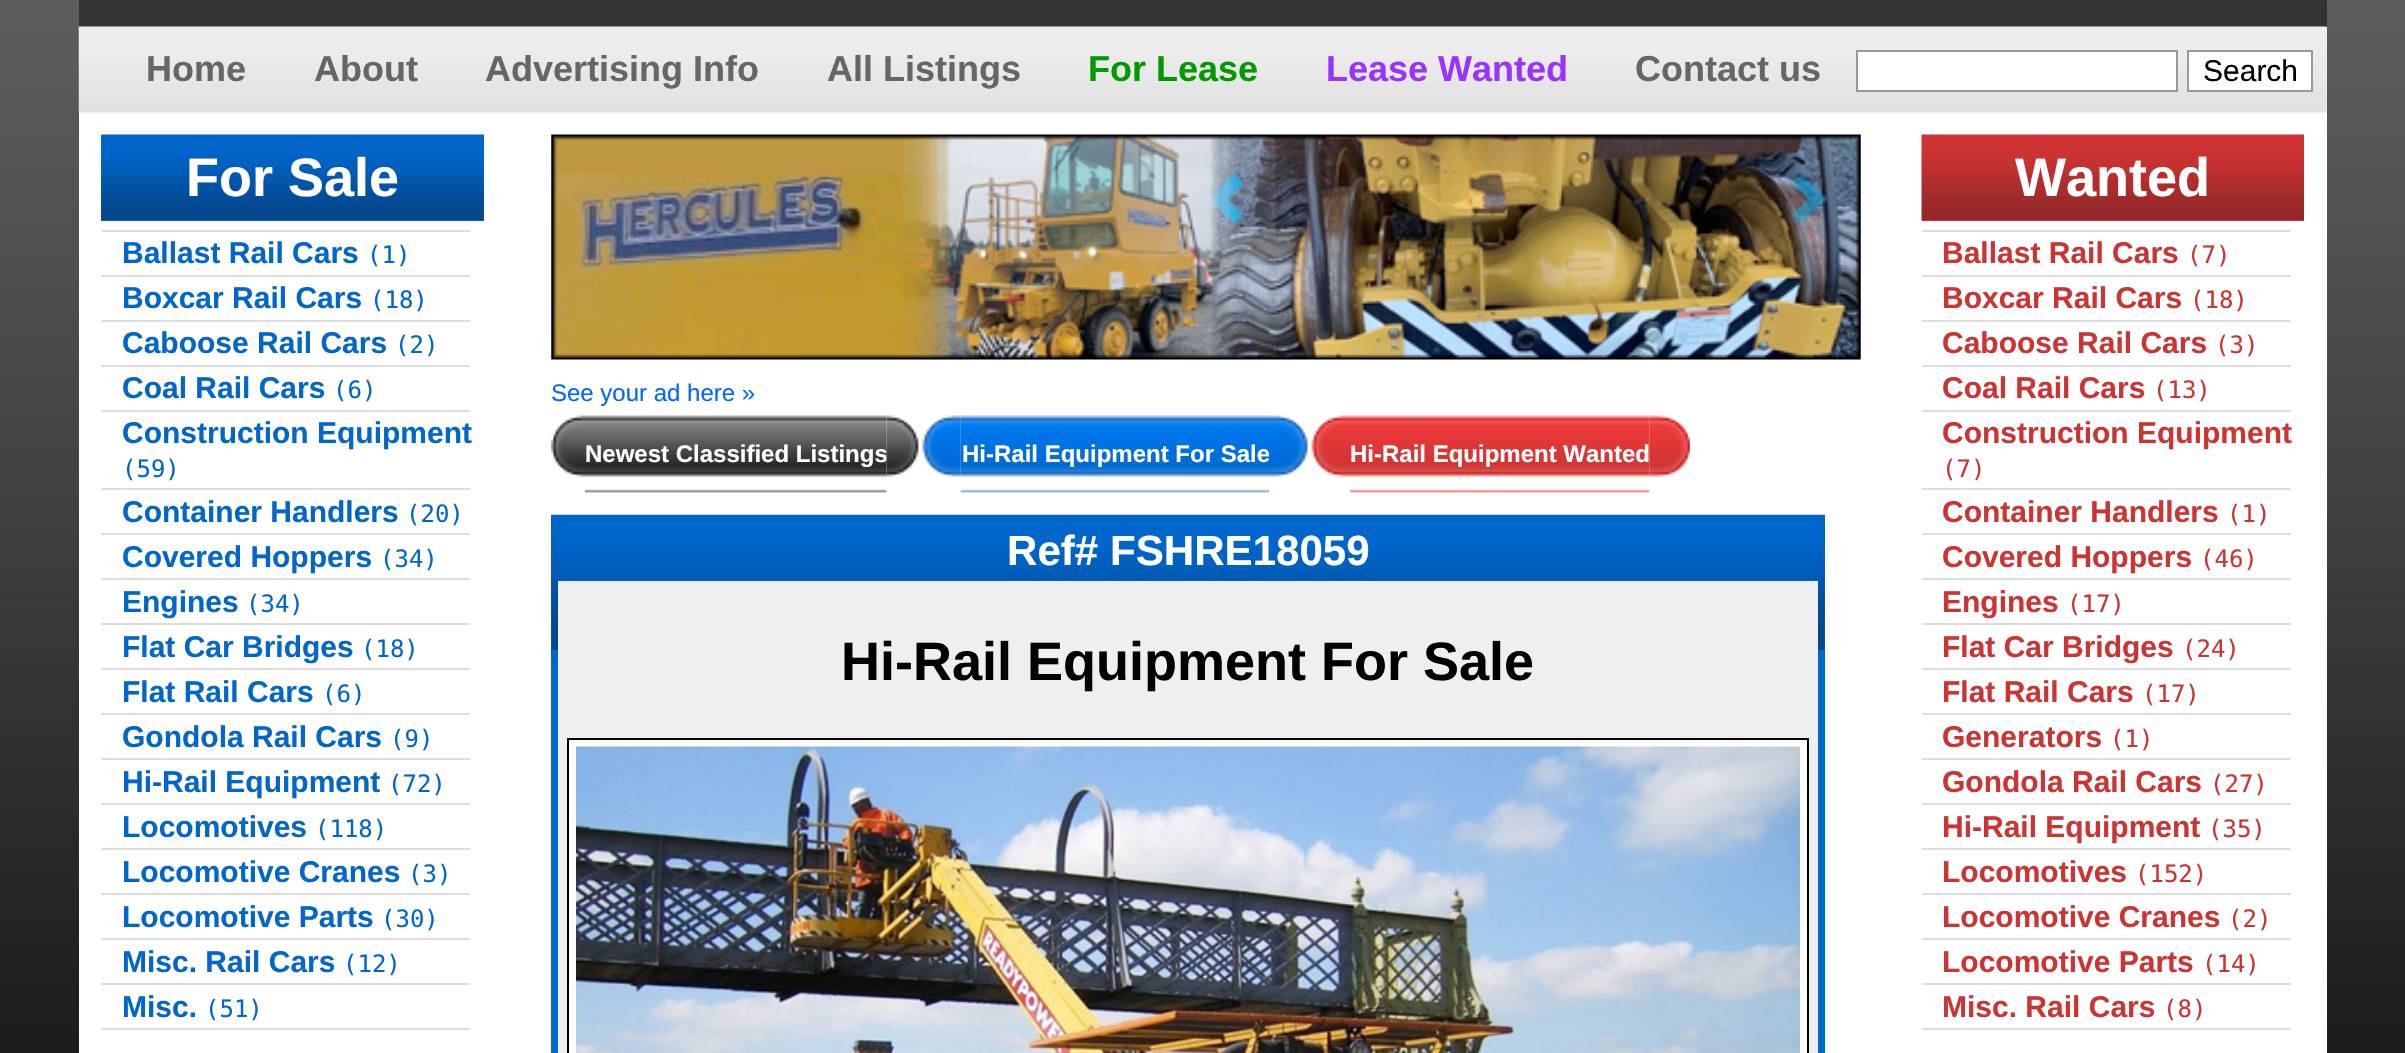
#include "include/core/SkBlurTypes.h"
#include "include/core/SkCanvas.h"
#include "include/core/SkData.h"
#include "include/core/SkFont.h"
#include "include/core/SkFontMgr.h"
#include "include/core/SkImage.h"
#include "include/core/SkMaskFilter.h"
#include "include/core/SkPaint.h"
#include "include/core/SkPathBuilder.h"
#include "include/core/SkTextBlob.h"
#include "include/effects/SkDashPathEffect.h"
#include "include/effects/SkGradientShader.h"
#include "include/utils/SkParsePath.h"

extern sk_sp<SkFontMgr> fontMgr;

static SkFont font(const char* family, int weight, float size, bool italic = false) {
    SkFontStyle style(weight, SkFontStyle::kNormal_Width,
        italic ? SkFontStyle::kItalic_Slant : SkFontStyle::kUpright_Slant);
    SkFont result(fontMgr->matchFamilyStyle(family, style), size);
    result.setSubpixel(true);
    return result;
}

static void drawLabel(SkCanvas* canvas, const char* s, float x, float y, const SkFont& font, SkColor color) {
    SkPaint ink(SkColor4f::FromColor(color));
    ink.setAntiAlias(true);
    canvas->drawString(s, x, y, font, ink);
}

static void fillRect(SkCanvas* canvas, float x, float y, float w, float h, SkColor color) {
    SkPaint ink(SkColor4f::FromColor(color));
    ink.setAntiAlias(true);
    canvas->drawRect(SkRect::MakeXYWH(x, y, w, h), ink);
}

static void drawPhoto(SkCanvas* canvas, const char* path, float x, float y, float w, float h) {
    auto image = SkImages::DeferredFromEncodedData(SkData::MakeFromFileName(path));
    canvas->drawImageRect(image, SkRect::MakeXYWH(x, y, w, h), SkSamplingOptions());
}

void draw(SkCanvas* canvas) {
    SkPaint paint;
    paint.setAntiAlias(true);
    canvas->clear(0xFFFFFFFF);
    drawPhoto(canvas, "assets/img1.png", 0, 0, 2405, 1053);
    fillRect(canvas, 79, 0, 2248, 27, 0xFF333333);
    fillRect(canvas, 79, 27, 2248, 86, 0xFFEFEFEF);
    drawPhoto(canvas, "assets/img2.png", 78, 26, 2249, 86);
    SkFont font1 = font("Liberation Sans", 700, 36);
    drawLabel(canvas, "Home", 146, 81, font1, 0xFF666666);
    drawLabel(canvas, "About", 314, 81, font1, 0xFF666666);
    drawLabel(canvas, "Advertising Info", 485, 81, font1, 0xFF666666);
    drawLabel(canvas, "All Listings", 827, 81, font1, 0xFF666666);
    drawLabel(canvas, "For Lease", 1088, 81, font1, 0xFF009900);
    drawLabel(canvas, "Lease Wanted", 1326, 81, font1, 0xFF9933FF);
    drawLabel(canvas, "Contact us", 1635, 81, font1, 0xFF666666);
    paint.setColor(0xFFFFFFFF);
    canvas->drawRect(SkRect::MakeXYWH(1857, 51, 320, 40), paint);
    paint.setStroke(true);
    paint.setStrokeWidth(2);
    paint.setColor(0xFF999999);
    canvas->drawRect(SkRect::MakeXYWH(1857, 51, 320, 40), paint);
    paint.setStroke(false);
    paint.setColor(0xFFFFFFFF);
    canvas->drawRect(SkRect::MakeXYWH(2188, 51, 124, 40), paint);
    paint.setStroke(true);
    paint.setColor(0xFF999999);
    canvas->drawRect(SkRect::MakeXYWH(2188, 51, 124, 40), paint);
    SkFont font2 = font("Liberation Sans", 400, 30);
    drawLabel(canvas, "Search", 2203, 81, font2, 0xFF000000);
    fillRect(canvas, 79, 113, 2248, 940, 0xFFFFFFFF);
    fillRect(canvas, 101, 135, 383, 86, 0xFF0066CC);
    drawPhoto(canvas, "assets/img3.png", 101, 134, 383, 86);
    SkFont font3 = font("Liberation Sans", 700, 54);
    drawLabel(canvas, "For Sale", 186, 196, font3, 0xFFFFFFFF);
    fillRect(canvas, 101, 230, 369, 2, 0xFFDDDDDD);
    SkFont font4 = font("Liberation Sans", 700, 30);
    drawLabel(canvas, "Ballast Rail Cars", 122, 263, font4, 0xFF0066CC);
    SkFont font5 = font("DejaVu Sans Mono", 400, 24);
    drawLabel(canvas, "(1)", 367, 263, font5, 0xFF0066CC);
    fillRect(canvas, 101, 275, 369, 2, 0xFFDDDDDD);
    drawLabel(canvas, "Boxcar Rail Cars", 122, 308, font4, 0xFF0066CC);
    drawLabel(canvas, "(18)", 370, 308, font5, 0xFF0066CC);
    fillRect(canvas, 101, 320, 369, 2, 0xFFDDDDDD);
    drawLabel(canvas, "Caboose Rail Cars", 122, 353, font4, 0xFF0066CC);
    drawLabel(canvas, "(2)", 395, 353, font5, 0xFF0066CC);
    fillRect(canvas, 101, 365, 369, 2, 0xFFDDDDDD);
    drawLabel(canvas, "Coal Rail Cars", 122, 398, font4, 0xFF0066CC);
    drawLabel(canvas, "(6)", 333, 398, font5, 0xFF0066CC);
    fillRect(canvas, 101, 410, 369, 2, 0xFFDDDDDD);
    drawLabel(canvas, "Construction Equipment", 122, 443, font4, 0xFF0066CC);
    drawLabel(canvas, "(59)", 122, 477, font5, 0xFF0066CC);
    fillRect(canvas, 101, 488, 369, 2, 0xFFDDDDDD);
    drawLabel(canvas, "Container Handlers", 122, 522, font4, 0xFF0066CC);
    drawLabel(canvas, "(20)", 406, 522, font5, 0xFF0066CC);
    fillRect(canvas, 101, 533, 369, 2, 0xFFDDDDDD);
    drawLabel(canvas, "Covered Hoppers", 122, 567, font4, 0xFF0066CC);
    drawLabel(canvas, "(34)", 380, 567, font5, 0xFF0066CC);
    fillRect(canvas, 101, 578, 369, 2, 0xFFDDDDDD);
    drawLabel(canvas, "Engines", 122, 612, font4, 0xFF0066CC);
    drawLabel(canvas, "(34)", 246, 612, font5, 0xFF0066CC);
    fillRect(canvas, 101, 623, 369, 2, 0xFFDDDDDD);
    drawLabel(canvas, "Flat Car Bridges", 122, 657, font4, 0xFF0066CC);
    drawLabel(canvas, "(18)", 361, 657, font5, 0xFF0066CC);
    fillRect(canvas, 101, 668, 369, 2, 0xFFDDDDDD);
    drawLabel(canvas, "Flat Rail Cars", 122, 702, font4, 0xFF0066CC);
    drawLabel(canvas, "(6)", 322, 702, font5, 0xFF0066CC);
    fillRect(canvas, 101, 713, 369, 2, 0xFFDDDDDD);
    drawLabel(canvas, "Gondola Rail Cars", 122, 747, font4, 0xFF0066CC);
    drawLabel(canvas, "(9)", 390, 747, font5, 0xFF0066CC);
    fillRect(canvas, 101, 758, 369, 2, 0xFFDDDDDD);
    drawLabel(canvas, "Hi-Rail Equipment", 122, 792, font4, 0xFF0066CC);
    drawLabel(canvas, "(72)", 388, 792, font5, 0xFF0066CC);
    fillRect(canvas, 101, 803, 369, 2, 0xFFDDDDDD);
    drawLabel(canvas, "Locomotives", 122, 837, font4, 0xFF0066CC);
    drawLabel(canvas, "(118)", 315, 837, font5, 0xFF0066CC);
    fillRect(canvas, 101, 848, 369, 2, 0xFFDDDDDD);
    drawLabel(canvas, "Locomotive Cranes", 122, 882, font4, 0xFF0066CC);
    drawLabel(canvas, "(3)", 408, 882, font5, 0xFF0066CC);
    fillRect(canvas, 101, 893, 369, 2, 0xFFDDDDDD);
    drawLabel(canvas, "Locomotive Parts", 122, 927, font4, 0xFF0066CC);
    drawLabel(canvas, "(30)", 381, 927, font5, 0xFF0066CC);
    fillRect(canvas, 101, 938, 369, 2, 0xFFDDDDDD);
    drawLabel(canvas, "Misc. Rail Cars", 122, 972, font4, 0xFF0066CC);
    drawLabel(canvas, "(12)", 343, 972, font5, 0xFF0066CC);
    fillRect(canvas, 101, 983, 369, 2, 0xFFDDDDDD);
    drawLabel(canvas, "Misc.", 122, 1017, font4, 0xFF0066CC);
    drawLabel(canvas, "(51)", 205, 1017, font5, 0xFF0066CC);
    fillRect(canvas, 101, 1028, 369, 2, 0xFFDDDDDD);
    drawPhoto(canvas, "assets/img4.png", 551, 134, 1310, 226);
    SkFont font6 = font("Liberation Sans", 400, 24);
    drawLabel(canvas, "See your ad here »", 551, 401, font6, 0xFF0066FF);
    drawPhoto(canvas, "assets/img5.png", 551, 415, 34, 63);
    drawPhoto(canvas, "assets/img6.png", 585, 415, 302, 78);
    SkFont font7 = font("Liberation Sans", 700, 24);
    drawLabel(canvas, "Newest Classified Listings", 585, 462, font7, 0xFFFFFFFF);
    drawPhoto(canvas, "assets/img7.png", 886, 415, 33, 62);
    drawPhoto(canvas, "assets/img9.png", 960, 415, 309, 78);
    drawPhoto(canvas, "assets/img8.png", 922, 415, 39, 63);
    drawLabel(canvas, "Hi-Rail Equipment For Sale", 962, 462, font7, 0xFFFFFFFF);
    drawPhoto(canvas, "assets/img10.png", 1269, 415, 39, 63);
    drawPhoto(canvas, "assets/img11.png", 1311, 415, 39, 63);
    drawPhoto(canvas, "assets/img12.png", 1350, 415, 300, 78);
    drawLabel(canvas, "Hi-Rail Equipment Wanted", 1350, 462, font7, 0xFFFFFFFF);
    drawPhoto(canvas, "assets/img13.png", 1649, 415, 41, 63);
    fillRect(canvas, 551, 515, 1274, 538, 0xFF0066CC);
    drawPhoto(canvas, "assets/img14.png", 551, 514, 1274, 136);
    fillRect(canvas, 558, 581, 1260, 472, 0xFFEFEFEF);
    fillRect(canvas, 558, 522, 1260, 59, 0xFF0066CC);
    drawPhoto(canvas, "assets/img15.png", 558, 548, 1260, 32);
    SkFont font8 = font("Liberation Sans", 700, 42.1f);
    drawLabel(canvas, "Ref# FSHRE18059", 1007, 565, font8, 0xFFFFFFFF);
    drawLabel(canvas, "Hi-Rail Equipment For Sale", 841, 680, font3, 0xFF000000);
    paint.setStroke(false);
    paint.setColor(0xFFFEFEFE);
    canvas->drawRect(SkRect::MakeXYWH(568, 739, 1240, 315), paint);
    paint.setStroke(true);
    paint.setColor(0xFF000000);
    canvas->drawRect(SkRect::MakeXYWH(568, 739, 1240, 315), paint);
    drawPhoto(canvas, "assets/img16.png", 576, 746, 1224, 307);
    fillRect(canvas, 1922, 220, 382, 1, 0xFFCC3333);
    drawPhoto(canvas, "assets/img17.png", 1921, 134, 383, 86);
    drawLabel(canvas, "Wanted", 2015, 196, font3, 0xFFFFFFFF);
    fillRect(canvas, 1922, 230, 369, 2, 0xFFDDDDDD);
    drawLabel(canvas, "Ballast Rail Cars", 1942, 263, font4, 0xFFCC3333);
    drawLabel(canvas, "(7)", 2187, 263, font5, 0xFFCC3333);
    fillRect(canvas, 1922, 275, 369, 2, 0xFFDDDDDD);
    drawLabel(canvas, "Boxcar Rail Cars", 1942, 308, font4, 0xFFCC3333);
    drawLabel(canvas, "(18)", 2190, 308, font5, 0xFFCC3333);
    fillRect(canvas, 1922, 320, 369, 2, 0xFFDDDDDD);
    drawLabel(canvas, "Caboose Rail Cars", 1942, 353, font4, 0xFFCC3333);
    drawLabel(canvas, "(3)", 2215, 353, font5, 0xFFCC3333);
    fillRect(canvas, 1922, 365, 369, 2, 0xFFDDDDDD);
    drawLabel(canvas, "Coal Rail Cars", 1942, 398, font4, 0xFFCC3333);
    drawLabel(canvas, "(13)", 2153, 398, font5, 0xFFCC3333);
    fillRect(canvas, 1922, 410, 369, 2, 0xFFDDDDDD);
    drawLabel(canvas, "Construction Equipment", 1942, 443, font4, 0xFFCC3333);
    drawLabel(canvas, "(7)", 1942, 477, font5, 0xFFCC3333);
    fillRect(canvas, 1922, 488, 369, 2, 0xFFDDDDDD);
    drawLabel(canvas, "Container Handlers", 1942, 522, font4, 0xFFCC3333);
    drawLabel(canvas, "(1)", 2227, 522, font5, 0xFFCC3333);
    fillRect(canvas, 1922, 533, 369, 2, 0xFFDDDDDD);
    drawLabel(canvas, "Covered Hoppers", 1942, 567, font4, 0xFFCC3333);
    drawLabel(canvas, "(46)", 2200, 567, font5, 0xFFCC3333);
    fillRect(canvas, 1922, 578, 369, 2, 0xFFDDDDDD);
    drawLabel(canvas, "Engines", 1942, 612, font4, 0xFFCC3333);
    drawLabel(canvas, "(17)", 2067, 612, font5, 0xFFCC3333);
    fillRect(canvas, 1922, 623, 369, 2, 0xFFDDDDDD);
    drawLabel(canvas, "Flat Car Bridges", 1942, 657, font4, 0xFFCC3333);
    drawLabel(canvas, "(24)", 2182, 657, font5, 0xFFCC3333);
    fillRect(canvas, 1922, 668, 369, 2, 0xFFDDDDDD);
    drawLabel(canvas, "Flat Rail Cars", 1942, 702, font4, 0xFFCC3333);
    drawLabel(canvas, "(17)", 2142, 702, font5, 0xFFCC3333);
    fillRect(canvas, 1922, 713, 369, 2, 0xFFDDDDDD);
    drawLabel(canvas, "Generators", 1942, 747, font4, 0xFFCC3333);
    drawLabel(canvas, "(1)", 2110, 747, font5, 0xFFCC3333);
    fillRect(canvas, 1922, 758, 369, 2, 0xFFDDDDDD);
    drawLabel(canvas, "Gondola Rail Cars", 1942, 792, font4, 0xFFCC3333);
    drawLabel(canvas, "(27)", 2210, 792, font5, 0xFFCC3333);
    fillRect(canvas, 1922, 803, 369, 2, 0xFFDDDDDD);
    drawLabel(canvas, "Hi-Rail Equipment", 1942, 837, font4, 0xFFCC3333);
    drawLabel(canvas, "(35)", 2208, 837, font5, 0xFFCC3333);
    fillRect(canvas, 1922, 848, 369, 2, 0xFFDDDDDD);
    drawLabel(canvas, "Locomotives", 1942, 882, font4, 0xFFCC3333);
    drawLabel(canvas, "(152)", 2135, 882, font5, 0xFFCC3333);
    fillRect(canvas, 1922, 893, 369, 2, 0xFFDDDDDD);
    drawLabel(canvas, "Locomotive Cranes", 1942, 927, font4, 0xFFCC3333);
    drawLabel(canvas, "(2)", 2228, 927, font5, 0xFFCC3333);
    fillRect(canvas, 1922, 938, 369, 2, 0xFFDDDDDD);
    drawLabel(canvas, "Locomotive Parts", 1942, 972, font4, 0xFFCC3333);
    drawLabel(canvas, "(14)", 2202, 972, font5, 0xFFCC3333);
    fillRect(canvas, 1922, 983, 369, 2, 0xFFDDDDDD);
    drawLabel(canvas, "Misc. Rail Cars", 1942, 1017, font4, 0xFFCC3333);
    drawLabel(canvas, "(8)", 2163, 1017, font5, 0xFFCC3333);
    fillRect(canvas, 1922, 1028, 369, 2, 0xFFDDDDDD);
}
